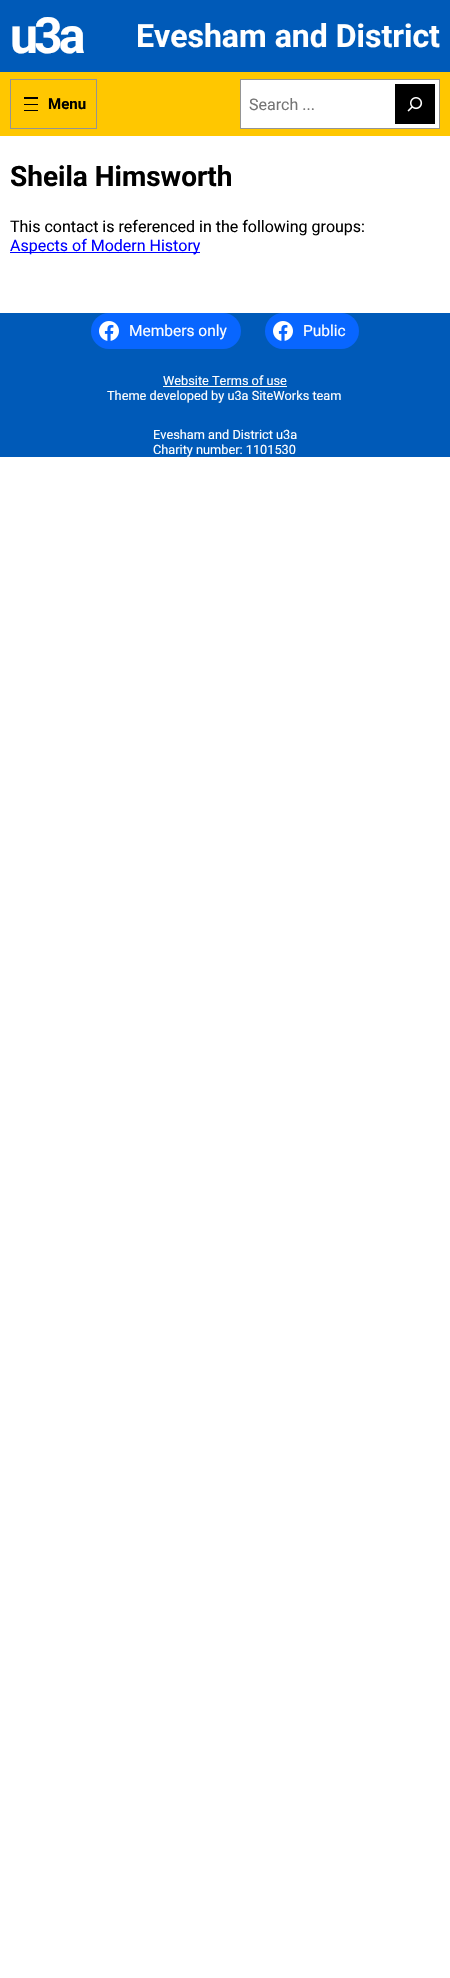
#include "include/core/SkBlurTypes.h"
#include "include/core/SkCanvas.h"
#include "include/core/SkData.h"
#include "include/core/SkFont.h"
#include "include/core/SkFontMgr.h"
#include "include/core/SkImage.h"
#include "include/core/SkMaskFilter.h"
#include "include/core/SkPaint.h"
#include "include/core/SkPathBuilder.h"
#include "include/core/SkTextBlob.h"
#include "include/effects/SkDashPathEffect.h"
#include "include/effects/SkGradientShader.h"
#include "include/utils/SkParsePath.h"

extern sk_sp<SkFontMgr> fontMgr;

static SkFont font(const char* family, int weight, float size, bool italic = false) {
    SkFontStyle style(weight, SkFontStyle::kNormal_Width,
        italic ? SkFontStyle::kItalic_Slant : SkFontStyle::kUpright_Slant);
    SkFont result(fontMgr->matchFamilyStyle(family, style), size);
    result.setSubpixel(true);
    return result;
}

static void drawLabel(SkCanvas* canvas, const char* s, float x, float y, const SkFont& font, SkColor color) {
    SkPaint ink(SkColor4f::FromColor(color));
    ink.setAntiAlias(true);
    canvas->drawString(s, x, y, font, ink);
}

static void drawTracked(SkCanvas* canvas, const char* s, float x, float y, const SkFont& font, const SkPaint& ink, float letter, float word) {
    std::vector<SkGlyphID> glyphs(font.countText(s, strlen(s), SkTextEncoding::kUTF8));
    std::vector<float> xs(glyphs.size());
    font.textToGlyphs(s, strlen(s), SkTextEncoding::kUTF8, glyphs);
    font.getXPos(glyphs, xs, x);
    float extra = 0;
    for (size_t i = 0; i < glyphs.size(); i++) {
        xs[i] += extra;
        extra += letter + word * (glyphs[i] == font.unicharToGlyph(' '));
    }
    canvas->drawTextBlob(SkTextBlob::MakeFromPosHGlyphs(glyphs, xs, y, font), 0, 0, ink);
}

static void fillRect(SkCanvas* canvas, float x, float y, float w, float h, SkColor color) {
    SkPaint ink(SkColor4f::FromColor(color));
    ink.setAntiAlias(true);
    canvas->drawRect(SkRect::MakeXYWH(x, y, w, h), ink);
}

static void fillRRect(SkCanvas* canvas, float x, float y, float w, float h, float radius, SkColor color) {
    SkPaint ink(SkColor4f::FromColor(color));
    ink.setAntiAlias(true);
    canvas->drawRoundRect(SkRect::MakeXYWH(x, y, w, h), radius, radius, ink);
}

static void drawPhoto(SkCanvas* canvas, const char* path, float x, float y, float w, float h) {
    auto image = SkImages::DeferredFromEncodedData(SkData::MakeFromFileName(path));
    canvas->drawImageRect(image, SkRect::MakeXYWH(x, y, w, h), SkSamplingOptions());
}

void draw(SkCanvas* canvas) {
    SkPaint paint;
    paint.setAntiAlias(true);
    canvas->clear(0xFFFFFFFF);
    fillRect(canvas, 0, 0, 450, 72, 0xFF005AB8);
    SkFont font1 = font("Roboto", 700, 50);
    paint.setColor(0xFFFFFFFF);
    drawTracked(canvas, "u3a", 10, 53, font1, paint, -4, 0);
    SkFont font2 = font("Roboto", 700, 32);
    drawLabel(canvas, "Evesham and District", 136, 47, font2, 0xFFFFFFFF);
    fillRect(canvas, 0, 72, 450, 64, 0xFFFFC700);
    paint.setStroke(true);
    paint.setStrokeWidth(1);
    paint.setColor(0xFF949494);
    canvas->drawRect(SkRect::MakeXYWH(10.5f, 79.5f, 86, 49), paint);
    fillRect(canvas, 24, 97, 14, 2, 0xFF000000);
    fillRect(canvas, 24, 104, 14, 1, 0xFF000000);
    fillRect(canvas, 24, 110, 14, 1, 0xFF000000);
    SkFont font3 = font("Roboto", 700, 15);
    drawLabel(canvas, "Menu", 48, 109, font3, 0xFF000000);
    paint.setStroke(false);
    paint.setColor(0xFFFFFFFF);
    canvas->drawRect(SkRect::MakeXYWH(240.5f, 79.5f, 199, 49), paint);
    paint.setStroke(true);
    paint.setColor(0xFF949494);
    canvas->drawRect(SkRect::MakeXYWH(240.5f, 79.5f, 199, 49), paint);
    SkFont font4 = font("Roboto", 400, 16);
    drawLabel(canvas, "Search ...", 249, 110, font4, 0xFF757575);
    fillRect(canvas, 395, 84, 40, 40, 0xFF000000);
    drawPhoto(canvas, "assets/img1.png", 407, 97, 16, 15);
    SkFont font5 = font("Roboto", 700, 28);
    drawLabel(canvas, "Sheila Himsworth", 10, 186, font5, 0xFF000000);
    drawLabel(canvas, "This contact is referenced in the following groups:", 10, 232, font4, 0xFF000000);
    fillRect(canvas, 10, 252, 190, 1, 0xFF0000FF);
    drawLabel(canvas, "Aspects of Modern History", 10, 251, font4, 0xFF0000FF);
    fillRect(canvas, 0, 313, 450, 144, 0xFF005AB8);
    fillRRect(canvas, 91, 313, 150, 36, 18, 0xFF0866FF);
    drawPhoto(canvas, "assets/img2.png", 99, 321, 20, 20);
    SkFont font6 = font("Roboto", 400, 15.5f);
    drawLabel(canvas, "Members only", 129, 336, font6, 0xFFFFFFFF);
    fillRRect(canvas, 265, 313, 94, 36, 18, 0xFF0866FF);
    drawPhoto(canvas, "assets/img2.png", 273, 321, 20, 20);
    drawLabel(canvas, "Public", 303, 336, font6, 0xFFFFFFFF);
    SkFont font7 = font("Roboto", 400, 12.75f);
    drawLabel(canvas, "Website Terms of use", 163, 385, font7, 0xFFFFFFFF);
    fillRect(canvas, 163, 386, 124, 1, 0xFFFFFFFF);
    drawLabel(canvas, "Theme developed by u3a SiteWorks team", 107, 400, font7, 0xFFFFFFFF);
    drawLabel(canvas, "Evesham and District u3a", 153, 439, font7, 0xFFFFFFFF);
    drawLabel(canvas, "Charity number: 1101530", 153, 454, font7, 0xFFFFFFFF);
}
